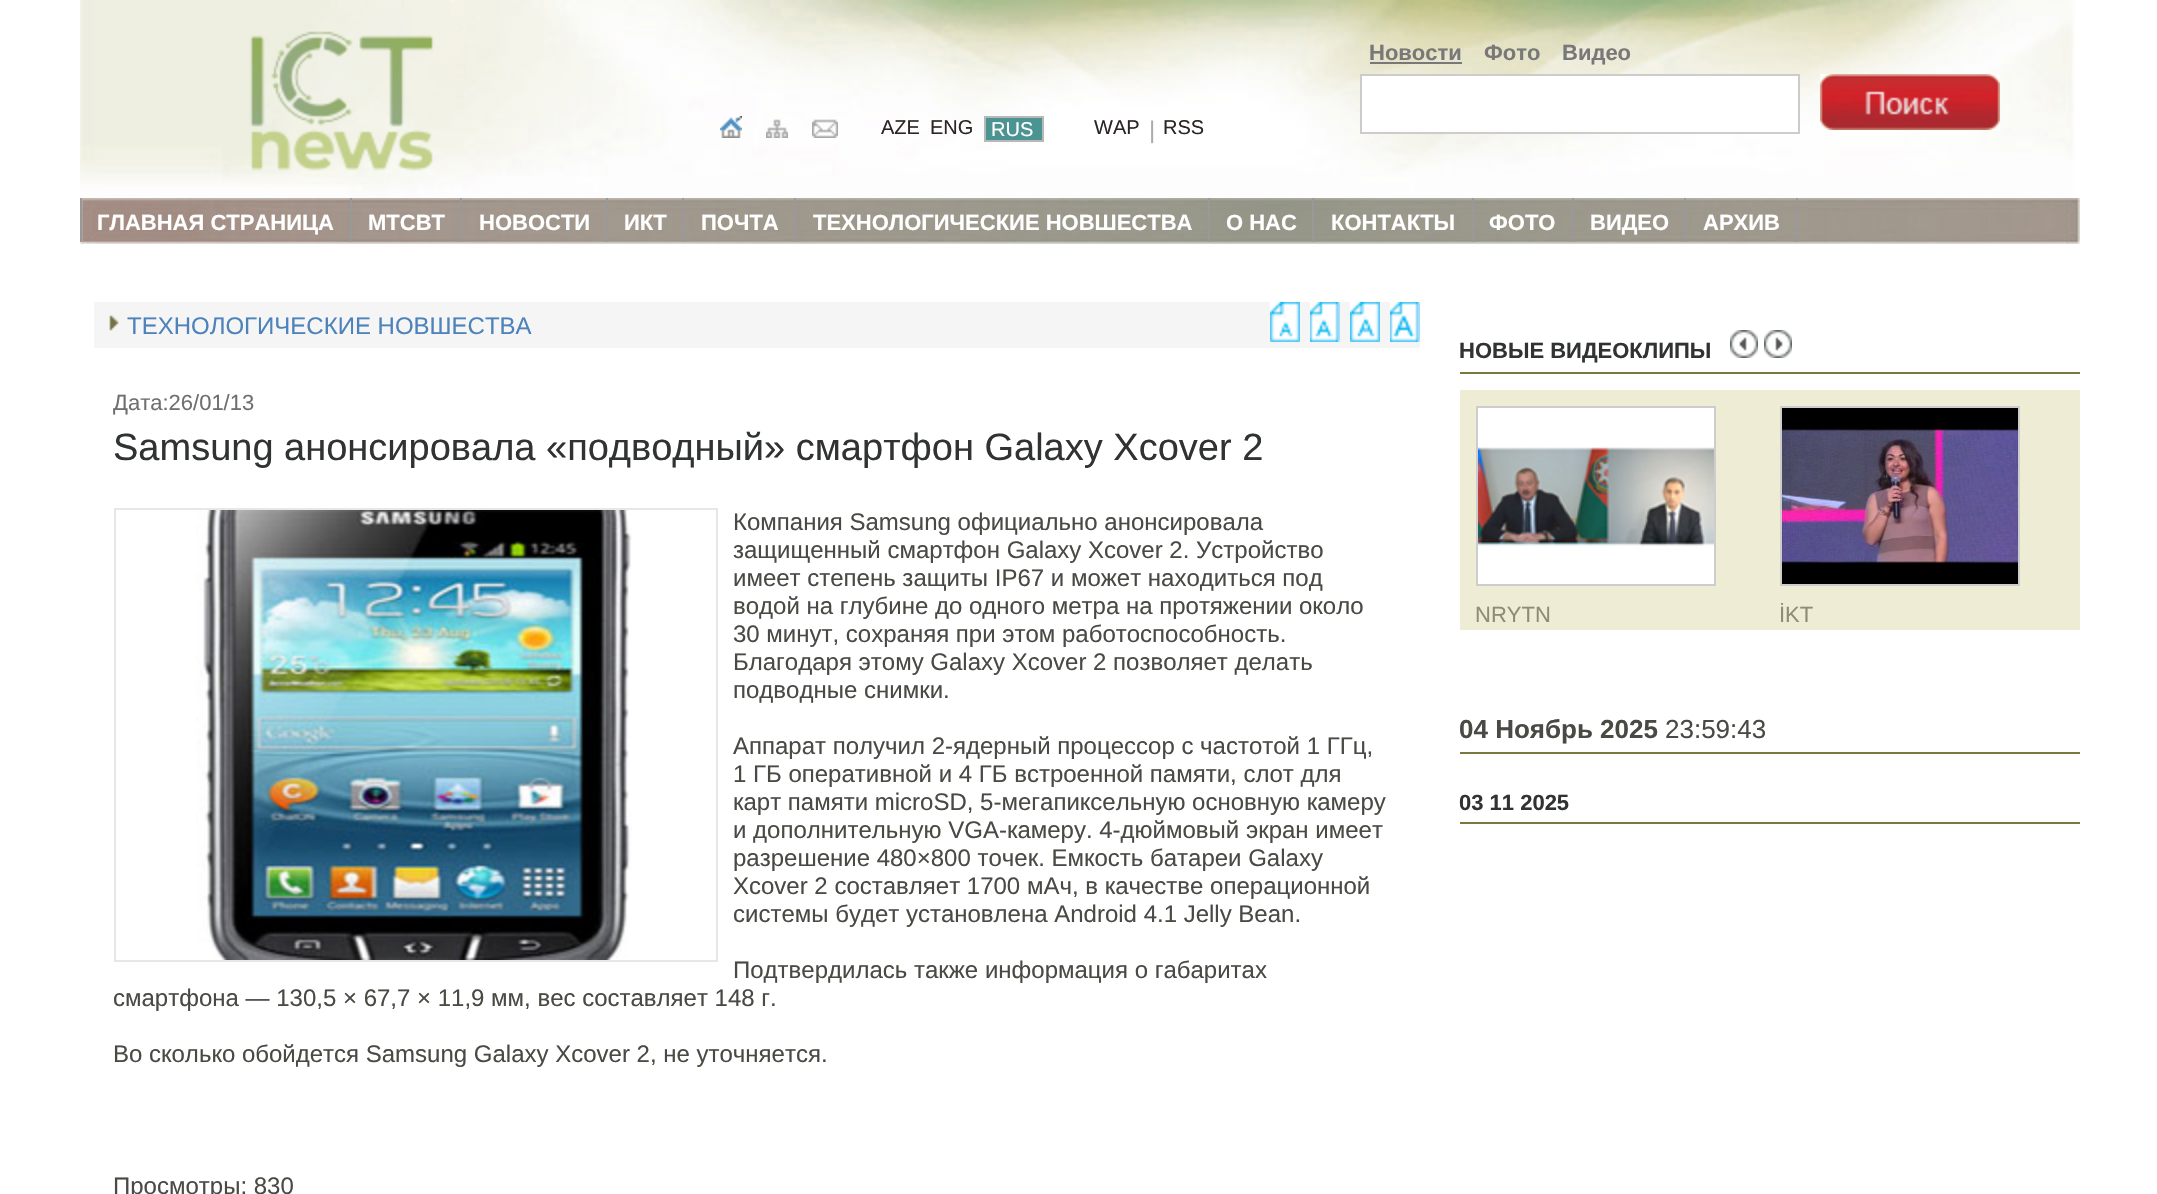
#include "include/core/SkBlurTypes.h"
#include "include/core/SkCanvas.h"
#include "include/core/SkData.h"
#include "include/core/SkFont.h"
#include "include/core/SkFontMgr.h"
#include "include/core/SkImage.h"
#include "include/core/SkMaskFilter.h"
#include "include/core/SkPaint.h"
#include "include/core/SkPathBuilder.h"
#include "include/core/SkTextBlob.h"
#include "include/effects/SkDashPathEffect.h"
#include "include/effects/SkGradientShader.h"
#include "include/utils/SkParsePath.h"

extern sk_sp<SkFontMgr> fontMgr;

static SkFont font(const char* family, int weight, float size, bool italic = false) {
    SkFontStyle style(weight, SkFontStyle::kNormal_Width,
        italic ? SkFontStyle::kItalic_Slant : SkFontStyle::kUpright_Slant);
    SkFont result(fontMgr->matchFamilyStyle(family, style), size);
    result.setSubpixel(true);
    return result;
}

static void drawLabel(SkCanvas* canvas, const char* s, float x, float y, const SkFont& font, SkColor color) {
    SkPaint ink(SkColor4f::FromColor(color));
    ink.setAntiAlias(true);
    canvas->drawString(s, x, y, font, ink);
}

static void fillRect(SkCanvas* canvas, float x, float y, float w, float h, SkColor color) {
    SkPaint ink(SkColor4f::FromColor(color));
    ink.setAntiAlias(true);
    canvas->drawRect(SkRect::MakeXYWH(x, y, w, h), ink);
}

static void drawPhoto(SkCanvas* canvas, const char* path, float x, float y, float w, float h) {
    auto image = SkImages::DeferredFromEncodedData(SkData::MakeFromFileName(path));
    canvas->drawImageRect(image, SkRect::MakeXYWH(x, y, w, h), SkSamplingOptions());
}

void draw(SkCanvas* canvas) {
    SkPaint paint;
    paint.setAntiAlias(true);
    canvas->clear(0xFFFFFFFF);
    drawPhoto(canvas, "assets/img1.png", 80, 0, 1995, 198);
    SkFont font1 = font("Liberation Sans", 700, 22);
    drawLabel(canvas, "Новости", 1369, 60, font1, 0xFF787878);
    fillRect(canvas, 1370, 62, 92, 2, 0xFF787878);
    drawLabel(canvas, "Фото", 1484, 60, font1, 0xFF787878);
    drawLabel(canvas, "Видео", 1562, 60, font1, 0xFF787878);
    paint.setColor(0xFFFFFFFF);
    canvas->drawRect(SkRect::MakeXYWH(1361, 75, 438, 58), paint);
    paint.setStroke(true);
    paint.setStrokeWidth(2);
    paint.setColor(0xFFCCCCCC);
    canvas->drawRect(SkRect::MakeXYWH(1361, 75, 438, 58), paint);
    drawPhoto(canvas, "assets/img2.png", 1820, 74, 180, 56);
    drawPhoto(canvas, "assets/img3.png", 720, 116, 22, 22);
    drawPhoto(canvas, "assets/img4.png", 766, 119, 22, 19);
    drawPhoto(canvas, "assets/img5.png", 812, 119, 26, 19);
    SkFont font2 = font("Liberation Sans", 400, 20);
    drawLabel(canvas, "AZE", 881, 134, font2, 0xFF2B2624);
    drawLabel(canvas, "ENG", 930, 134, font2, 0xFF2B2624);
    paint.setStroke(false);
    paint.setColor(0xFF4C9492);
    canvas->drawRect(SkRect::MakeXYWH(985, 117, 58, 24), paint);
    paint.setStroke(true);
    paint.setColor(0xFFB8B8B8);
    canvas->drawRect(SkRect::MakeXYWH(985, 117, 58, 24), paint);
    drawLabel(canvas, "RUS", 991, 136, font2, 0xFFFFFFFF);
    drawLabel(canvas, "WAP", 1094, 134, font2, 0xFF2B2624);
    SkFont font3 = font("Liberation Sans", 400, 24);
    drawLabel(canvas, "|", 1149, 138, font3, 0xFFABABAB);
    drawLabel(canvas, "RSS", 1163, 134, font2, 0xFF2B2624);
    drawPhoto(canvas, "assets/img6.png", 80, 198, 2000, 46);
    fillRect(canvas, 80, 198, 2, 44, 0xFF999999);
    fillRect(canvas, 350, 198, 2, 44, 0xFF999999);
    drawLabel(canvas, "ГЛАВНАЯ СТРАНИЦА", 97, 230, font1, 0xFFFFFFFF);
    fillRect(canvas, 460, 198, 2, 44, 0xFF999999);
    drawLabel(canvas, "МТСВТ", 368, 230, font1, 0xFFFFFFFF);
    fillRect(canvas, 606, 198, 2, 44, 0xFF999999);
    drawLabel(canvas, "НОВОСТИ", 479, 230, font1, 0xFFFFFFFF);
    fillRect(canvas, 682, 198, 2, 44, 0xFF999999);
    drawLabel(canvas, "ИКТ", 624, 230, font1, 0xFFFFFFFF);
    fillRect(canvas, 794, 198, 2, 44, 0xFF999999);
    drawLabel(canvas, "ПОЧТА", 701, 230, font1, 0xFFFFFFFF);
    fillRect(canvas, 1208, 198, 2, 44, 0xFF999999);
    drawLabel(canvas, "ТЕXHОЛОГИЧЕСКИЕ HОBШЕСТBA", 813, 230, font1, 0xFFFFFFFF);
    fillRect(canvas, 1312, 198, 2, 44, 0xFF999999);
    drawLabel(canvas, "О НАС", 1226, 230, font1, 0xFFFFFFFF);
    fillRect(canvas, 1472, 198, 2, 44, 0xFF999999);
    drawLabel(canvas, "КОНТАКТЫ", 1331, 230, font1, 0xFFFFFFFF);
    fillRect(canvas, 1572, 198, 2, 44, 0xFF999999);
    drawLabel(canvas, "ФОТО", 1489, 230, font1, 0xFFFFFFFF);
    fillRect(canvas, 1684, 198, 2, 44, 0xFF999999);
    drawLabel(canvas, "ВИДЕО", 1590, 230, font1, 0xFFFFFFFF);
    fillRect(canvas, 1796, 198, 2, 44, 0xFF999999);
    drawLabel(canvas, "АРХИВ", 1703, 230, font1, 0xFFFFFFFF);
    fillRect(canvas, 94, 302, 1326, 46, 0xFFF5F5F5);
    drawPhoto(canvas, "assets/img7.png", 109, 315, 10, 16);
    drawLabel(canvas, "ТЕXHОЛОГИЧЕСКИЕ HОBШЕСТBA", 127, 334, font3, 0xFF4D82BB);
    drawPhoto(canvas, "assets/img8.png", 1270, 302, 30, 40);
    drawPhoto(canvas, "assets/img9.png", 1310, 302, 30, 40);
    drawPhoto(canvas, "assets/img10.png", 1350, 302, 30, 40);
    drawPhoto(canvas, "assets/img11.png", 1390, 302, 30, 40);
    SkFont font4 = font("Liberation Sans", 400, 22);
    drawLabel(canvas, "Дата:26/01/13", 113, 410, font4, 0xFF706F6F);
    SkFont font5 = font("Liberation Sans", 400, 38);
    drawLabel(canvas, "Samsung анонсировала «подводный» смартфон Galaxy Xcover 2", 113, 460, font5, 0xFF313333);
    paint.setColor(0xFFE7E7E7);
    canvas->drawRect(SkRect::MakeXYWH(115, 509, 602, 452), paint);
    drawPhoto(canvas, "assets/img12.png", 196, 510, 436, 450);
    drawLabel(canvas, "Компания Samsung официально анонсировала", 733, 530, font3, 0xFF4A4A45);
    drawLabel(canvas, "защищенный смартфон Galaxy Xcover 2. Устройство", 733, 558, font3, 0xFF4A4A45);
    drawLabel(canvas, "имеет степень защиты IP67 и может находиться под", 733, 586, font3, 0xFF4A4A45);
    drawLabel(canvas, "водой на глубине до одного метра на протяжении около", 733, 614, font3, 0xFF4A4A45);
    drawLabel(canvas, "30 минут, сохраняя при этом работоспособность.", 733, 642, font3, 0xFF4A4A45);
    drawLabel(canvas, "Благодаря этому Galaxy Xcover 2 позволяет делать", 733, 670, font3, 0xFF4A4A45);
    drawLabel(canvas, "подводные снимки.", 733, 698, font3, 0xFF4A4A45);
    drawLabel(canvas, "Аппарат получил 2-ядерный процессор с частотой 1 ГГц,", 733, 754, font3, 0xFF4A4A45);
    drawLabel(canvas, "1 ГБ оперативной и 4 ГБ встроенной памяти, слот для", 733, 782, font3, 0xFF4A4A45);
    drawLabel(canvas, "карт памяти microSD, 5-мегапиксельную основную камеру", 733, 810, font3, 0xFF4A4A45);
    drawLabel(canvas, "и дополнительную VGA-камеру. 4-дюймовый экран имеет", 733, 838, font3, 0xFF4A4A45);
    drawLabel(canvas, "разрешение 480×800 точек. Емкость батареи Galaxy", 733, 866, font3, 0xFF4A4A45);
    drawLabel(canvas, "Xcover 2 составляет 1700 мАч, в качестве операционной", 733, 894, font3, 0xFF4A4A45);
    drawLabel(canvas, "системы будет установлена Android 4.1 Jelly Bean.", 733, 922, font3, 0xFF4A4A45);
    drawLabel(canvas, "Подтвердилась также информация о габаритах", 733, 978, font3, 0xFF4A4A45);
    drawLabel(canvas, "смартфона — 130,5 × 67,7 × 11,9 мм, вес составляет 148 г.", 113, 1006, font3, 0xFF4A4A45);
    drawLabel(canvas, "Во сколько обойдется Samsung Galaxy Xcover 2, не уточняется.", 113, 1062, font3, 0xFF4A4A45);
    drawLabel(canvas, "Просмотры: 830", 113, 1194, font3, 0xFF4A4A45);
    fillRect(canvas, 1460, 372, 620, 2, 0xFF797841);
    drawLabel(canvas, "НОВЫЕ ВИДЕОКЛИПЫ", 1459, 358, font1, 0xFF313333);
    drawPhoto(canvas, "assets/img13.png", 1730, 330, 28, 28);
    drawPhoto(canvas, "assets/img14.png", 1764, 330, 28, 28);
    fillRect(canvas, 1460, 390, 620, 240, 0xFFEEECD5);
    paint.setColor(0xFFCDCDCD);
    canvas->drawRect(SkRect::MakeXYWH(1477, 407, 238, 178), paint);
    drawPhoto(canvas, "assets/img15.png", 1478, 408, 236, 176);
    drawLabel(canvas, "NRYTN", 1475, 622, font4, 0xFF8E8D74);
    canvas->drawRect(SkRect::MakeXYWH(1781, 407, 238, 178), paint);
    drawPhoto(canvas, "assets/img16.png", 1782, 408, 236, 176);
    drawLabel(canvas, "İKT", 1779, 622, font4, 0xFF8E8D74);
    SkFont font6 = font("Liberation Sans", 700, 26);
    drawLabel(canvas, "04 Ноябрь 2025", 1459, 738, font6, 0xFF4A4A45);
    SkFont font7 = font("Liberation Sans", 400, 26);
    drawLabel(canvas, "23:59:43", 1665, 738, font7, 0xFF4A4A45);
    fillRect(canvas, 1460, 752, 620, 2, 0xFF797841);
    fillRect(canvas, 1460, 822, 620, 2, 0xFF797841);
    drawLabel(canvas, "03 11 2025", 1459, 810, font1, 0xFF313333);
}
